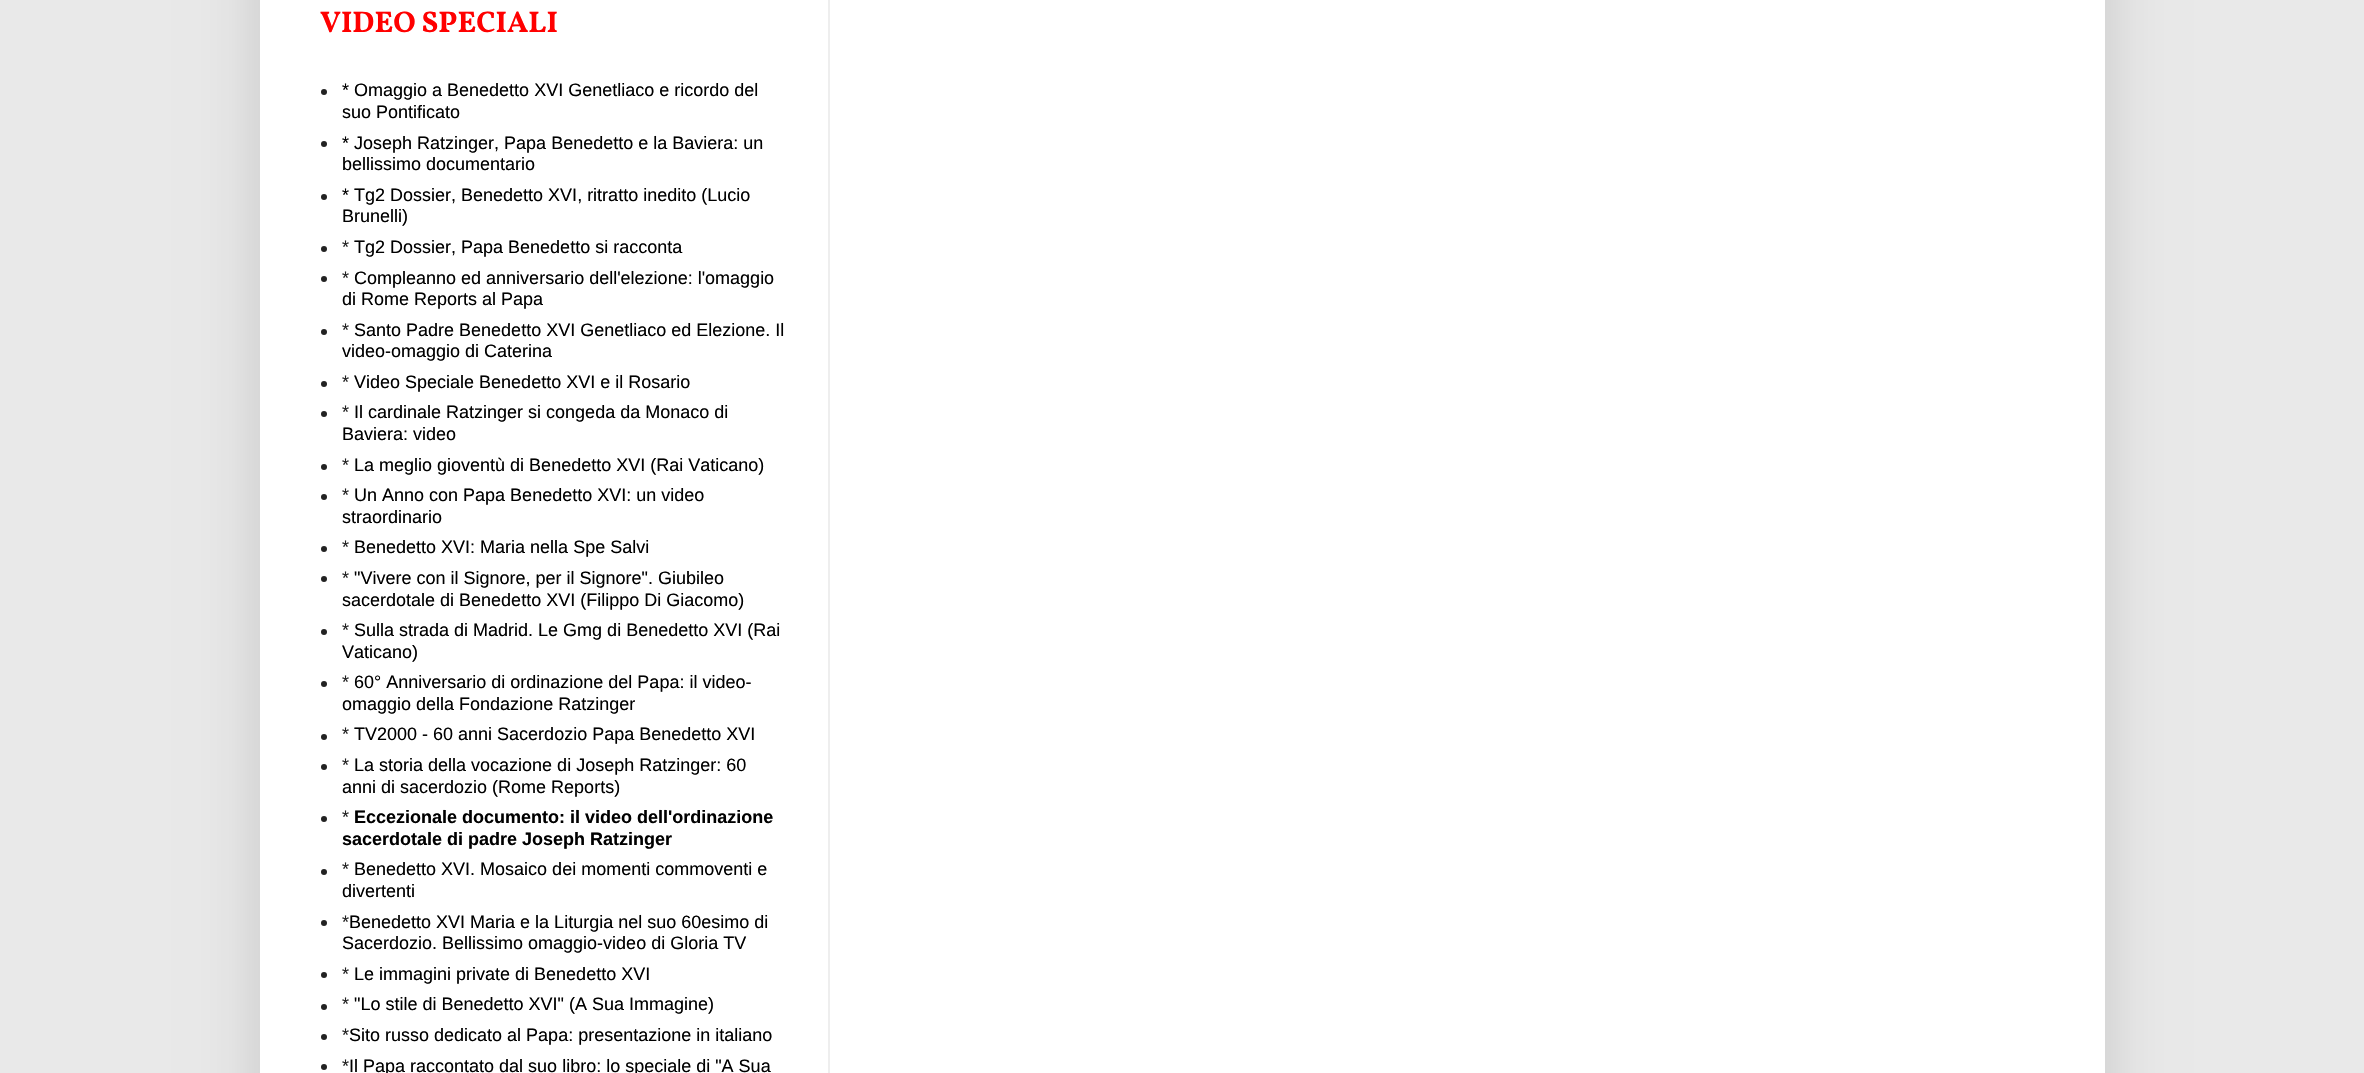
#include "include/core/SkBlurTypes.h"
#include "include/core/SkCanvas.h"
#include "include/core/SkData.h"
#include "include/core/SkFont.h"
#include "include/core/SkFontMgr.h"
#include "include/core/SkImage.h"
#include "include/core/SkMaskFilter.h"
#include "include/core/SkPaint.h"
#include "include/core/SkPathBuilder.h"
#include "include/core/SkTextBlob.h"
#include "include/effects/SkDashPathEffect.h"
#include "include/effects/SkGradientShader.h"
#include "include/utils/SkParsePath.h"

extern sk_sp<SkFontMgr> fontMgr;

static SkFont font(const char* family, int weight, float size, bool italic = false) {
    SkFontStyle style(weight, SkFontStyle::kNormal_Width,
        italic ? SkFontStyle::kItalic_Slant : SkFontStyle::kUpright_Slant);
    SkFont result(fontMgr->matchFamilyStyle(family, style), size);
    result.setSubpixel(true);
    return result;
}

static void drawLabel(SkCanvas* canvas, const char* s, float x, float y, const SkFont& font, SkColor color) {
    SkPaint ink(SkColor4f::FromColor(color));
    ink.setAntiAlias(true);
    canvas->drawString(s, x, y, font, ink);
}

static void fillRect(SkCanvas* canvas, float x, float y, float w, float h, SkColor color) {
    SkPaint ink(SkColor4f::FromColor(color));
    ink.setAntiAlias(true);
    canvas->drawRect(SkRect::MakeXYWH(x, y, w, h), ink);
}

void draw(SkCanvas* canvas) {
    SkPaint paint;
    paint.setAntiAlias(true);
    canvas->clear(0xFFE9E9E9);
    paint.setColor(0x26000000);
    paint.setMaskFilter(SkMaskFilter::MakeBlur(kNormal_SkBlurStyle, 30));
    canvas->drawRect(SkRect::MakeXYWH(260, -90, 1845, 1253), paint);
    paint.setMaskFilter(nullptr);
    fillRect(canvas, 260, 0, 1845, 1073, 0xFFFFFFFF);
    SkFont font1 = font("Vollkorn", 700, 30);
    drawLabel(canvas, "VIDEO SPECIALI", 320, 32, font1, 0xFFFF0000);
    paint.setColor(0xFF222222);
    canvas->drawCircle(324, 92, 3, paint);
    SkFont font2 = font("Liberation Sans", 400, 18);
    drawLabel(canvas, "* Omaggio a Benedetto XVI Genetliaco e ricordo del", 342, 96, font2, 0xFF000000);
    drawLabel(canvas, "suo Pontificato", 342, 118, font2, 0xFF000000);
    canvas->drawCircle(324, 144, 3, paint);
    drawLabel(canvas, "* Joseph Ratzinger, Papa Benedetto e la Baviera: un", 342, 149, font2, 0xFF000000);
    drawLabel(canvas, "bellissimo documentario", 342, 170, font2, 0xFF000000);
    canvas->drawCircle(324, 197, 3, paint);
    drawLabel(canvas, "* Tg2 Dossier, Benedetto XVI, ritratto inedito (Lucio", 342, 201, font2, 0xFF000000);
    drawLabel(canvas, "Brunelli)", 342, 222, font2, 0xFF000000);
    drawLabel(canvas, "*", 342, 253, font2, 0xFF222222);
    drawLabel(canvas, "Tg2 Dossier, Papa Benedetto si racconta", 354, 253, font2, 0xFF000000);
    canvas->drawCircle(324, 249, 3, paint);
    drawLabel(canvas, "*", 342, 284, font2, 0xFF222222);
    drawLabel(canvas, "Compleanno ed anniversario dell'elezione: l'omaggio", 354, 284, font2, 0xFF000000);
    canvas->drawCircle(324, 279, 3, paint);
    drawLabel(canvas, "di Rome Reports al Papa", 342, 305, font2, 0xFF000000);
    drawLabel(canvas, "*", 342, 336, font2, 0xFF222222);
    drawLabel(canvas, "Santo Padre Benedetto XVI Genetliaco ed Elezione. Il", 354, 336, font2, 0xFF000000);
    canvas->drawCircle(324, 332, 3, paint);
    drawLabel(canvas, "video-omaggio di Caterina", 342, 357, font2, 0xFF000000);
    drawLabel(canvas, "*", 342, 388, font2, 0xFF222222);
    drawLabel(canvas, "Video Speciale Benedetto XVI e il Rosario", 354, 388, font2, 0xFF000000);
    canvas->drawCircle(324, 384, 3, paint);
    drawLabel(canvas, "*", 342, 418, font2, 0xFF222222);
    drawLabel(canvas, "Il cardinale Ratzinger si congeda da Monaco di", 354, 418, font2, 0xFF000000);
    canvas->drawCircle(324, 414, 3, paint);
    drawLabel(canvas, "Baviera: video", 342, 440, font2, 0xFF000000);
    drawLabel(canvas, "*", 342, 471, font2, 0xFF222222);
    drawLabel(canvas, "La meglio gioventù di Benedetto XVI (Rai Vaticano)", 354, 471, font2, 0xFF000000);
    canvas->drawCircle(324, 467, 3, paint);
    drawLabel(canvas, "*", 342, 501, font2, 0xFF222222);
    drawLabel(canvas, "Un Anno con Papa Benedetto XVI: un video", 354, 501, font2, 0xFF000000);
    canvas->drawCircle(324, 497, 3, paint);
    drawLabel(canvas, "straordinario", 342, 523, font2, 0xFF000000);
    drawLabel(canvas, "*", 342, 553, font2, 0xFF222222);
    drawLabel(canvas, "Benedetto XVI: Maria nella Spe Salvi", 354, 553, font2, 0xFF000000);
    canvas->drawCircle(324, 549, 3, paint);
    drawLabel(canvas, "*", 342, 584, font2, 0xFF222222);
    drawLabel(canvas, "\"Vivere con il Signore, per il Signore\". Giubileo", 354, 584, font2, 0xFF000000);
    canvas->drawCircle(324, 579, 3, paint);
    drawLabel(canvas, "sacerdotale di Benedetto XVI (Filippo Di Giacomo)", 342, 606, font2, 0xFF000000);
    drawLabel(canvas, "*", 342, 636, font2, 0xFF222222);
    drawLabel(canvas, "Sulla strada di Madrid. Le Gmg di Benedetto XVI (Rai", 354, 636, font2, 0xFF000000);
    canvas->drawCircle(324, 632, 3, paint);
    drawLabel(canvas, "Vaticano)", 342, 658, font2, 0xFF000000);
    drawLabel(canvas, "*", 342, 688, font2, 0xFF222222);
    drawLabel(canvas, "60° Anniversario di ordinazione del Papa: il video-", 354, 688, font2, 0xFF000000);
    canvas->drawCircle(324, 684, 3, paint);
    drawLabel(canvas, "omaggio della Fondazione Ratzinger", 342, 710, font2, 0xFF000000);
    drawLabel(canvas, "*", 342, 740, font2, 0xFF222222);
    drawLabel(canvas, "TV2000 - 60 anni Sacerdozio Papa Benedetto XVI", 354, 740, font2, 0xFF000000);
    canvas->drawCircle(324, 737, 3, paint);
    drawLabel(canvas, "*", 342, 771, font2, 0xFF222222);
    drawLabel(canvas, "La storia della vocazione di Joseph Ratzinger: 60", 354, 771, font2, 0xFF000000);
    canvas->drawCircle(324, 767, 3, paint);
    drawLabel(canvas, "anni di sacerdozio (Rome Reports)", 342, 793, font2, 0xFF000000);
    drawLabel(canvas, "*", 342, 823, font2, 0xFF222222);
    SkFont font3 = font("Liberation Sans", 700, 18);
    drawLabel(canvas, "Eccezionale documento: il video dell'ordinazione", 354, 823, font3, 0xFF000000);
    canvas->drawCircle(324, 819, 3, paint);
    drawLabel(canvas, "sacerdotale di padre Joseph Ratzinger", 342, 845, font3, 0xFF000000);
    drawLabel(canvas, "*", 342, 875, font2, 0xFF222222);
    drawLabel(canvas, "Benedetto XVI. Mosaico dei momenti commoventi e", 354, 875, font2, 0xFF000000);
    canvas->drawCircle(324, 872, 3, paint);
    drawLabel(canvas, "divertenti", 342, 897, font2, 0xFF000000);
    drawLabel(canvas, "*", 342, 928, font2, 0xFF222222);
    drawLabel(canvas, "Benedetto XVI Maria e la Liturgia nel suo 60esimo di", 349, 928, font2, 0xFF000000);
    canvas->drawCircle(324, 923, 3, paint);
    drawLabel(canvas, "Sacerdozio. Bellissimo omaggio-video di Gloria TV", 342, 949, font2, 0xFF000000);
    drawLabel(canvas, "*", 342, 980, font2, 0xFF222222);
    drawLabel(canvas, "Le immagini private di Benedetto XVI", 354, 980, font2, 0xFF000000);
    canvas->drawCircle(324, 975, 3, paint);
    drawLabel(canvas, "*", 342, 1010, font2, 0xFF222222);
    drawLabel(canvas, "\"Lo stile di Benedetto XVI\" (A Sua Immagine)", 354, 1010, font2, 0xFF000000);
    canvas->drawCircle(324, 1007, 3, paint);
    drawLabel(canvas, "*", 342, 1041, font2, 0xFF222222);
    drawLabel(canvas, "Sito russo dedicato al Papa: presentazione in italiano", 349, 1041, font2, 0xFF000000);
    canvas->drawCircle(324, 1037, 3, paint);
    drawLabel(canvas, "*", 342, 1072, font2, 0xFF222222);
    drawLabel(canvas, "Il Papa raccontato dal suo libro: lo speciale di \"A Sua", 349, 1072, font2, 0xFF000000);
    canvas->drawCircle(324, 1067, 3, paint);
    fillRect(canvas, 828, 0, 2, 1073, 0xFFEEEEEE);
}
